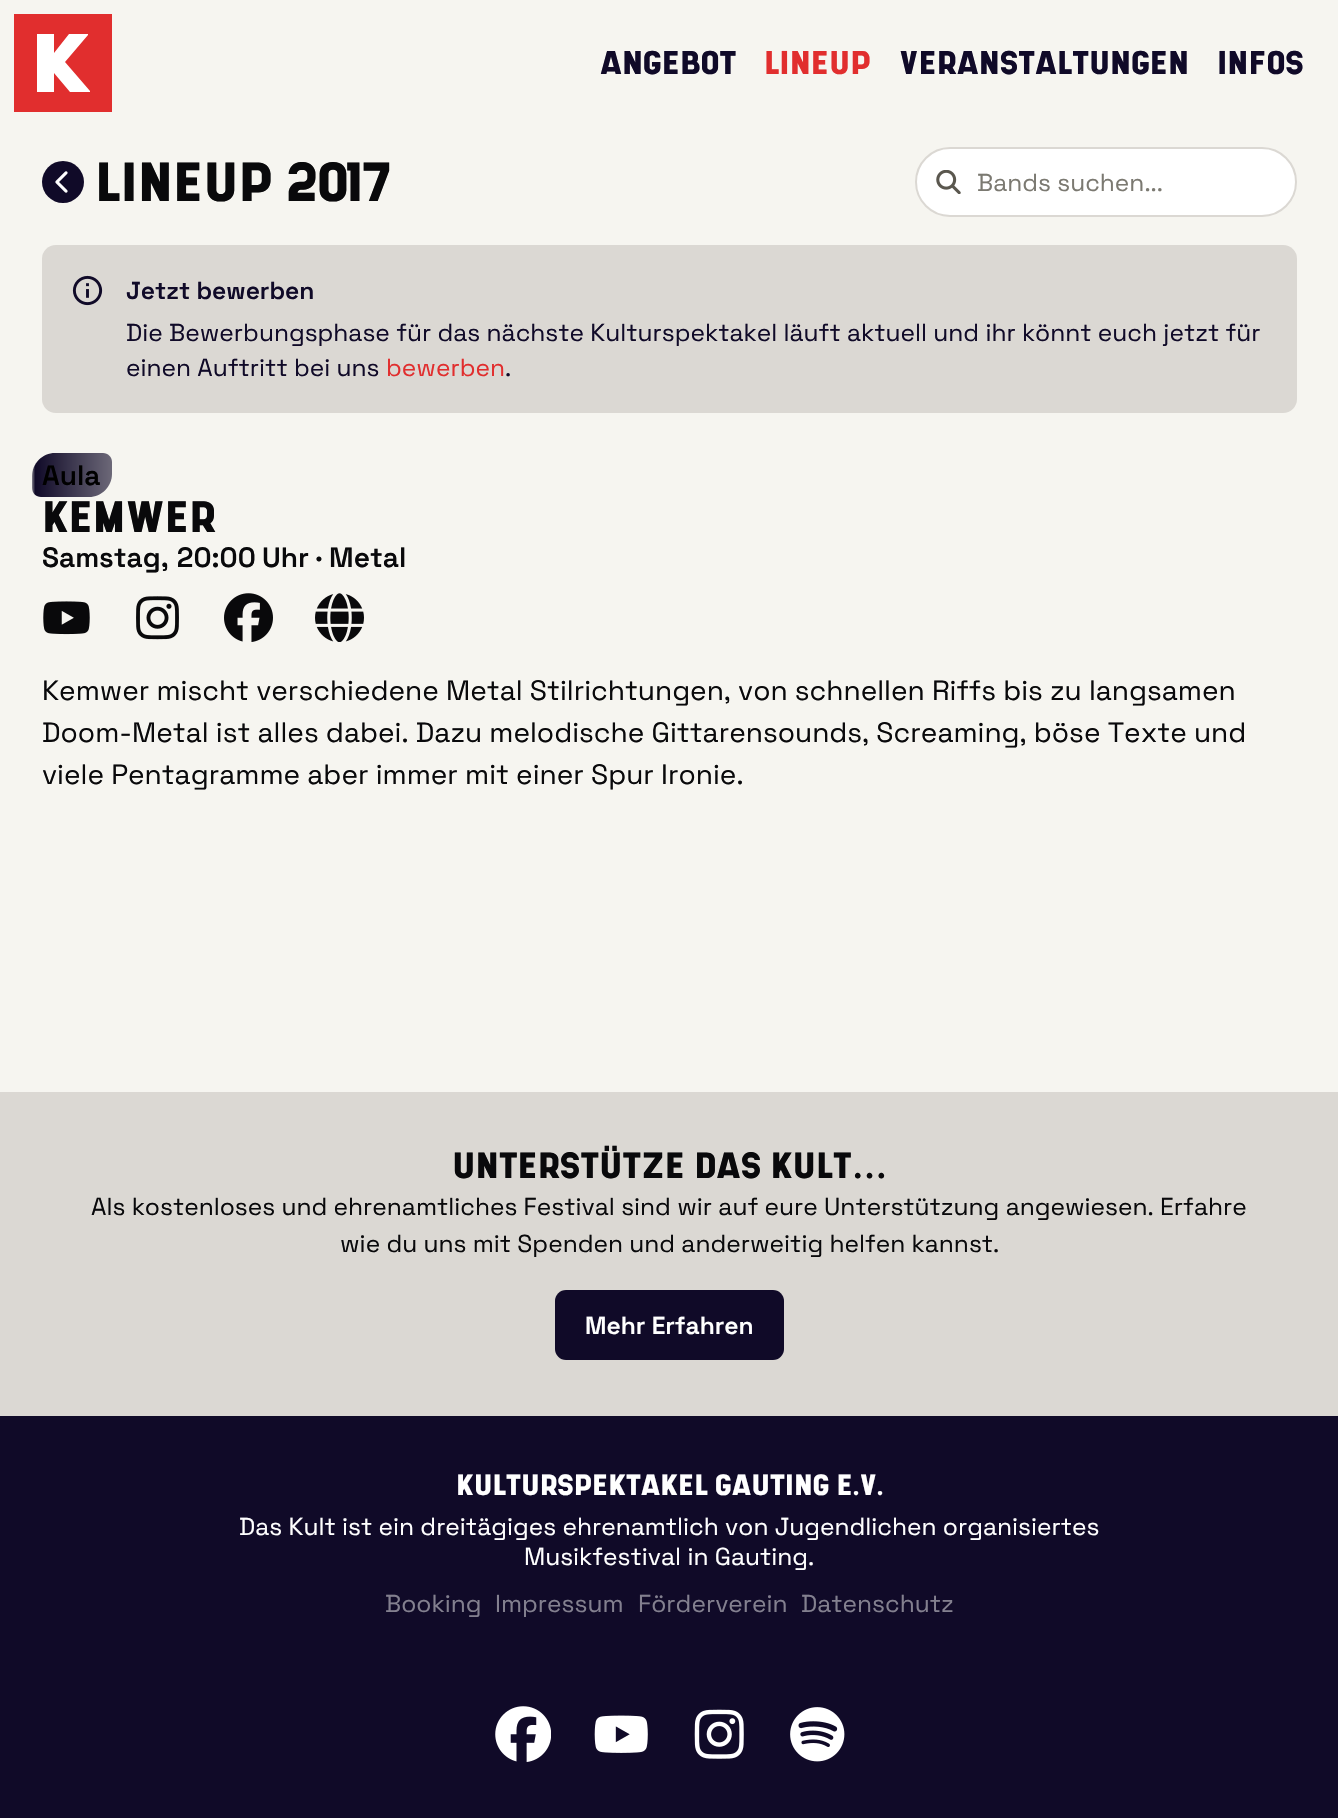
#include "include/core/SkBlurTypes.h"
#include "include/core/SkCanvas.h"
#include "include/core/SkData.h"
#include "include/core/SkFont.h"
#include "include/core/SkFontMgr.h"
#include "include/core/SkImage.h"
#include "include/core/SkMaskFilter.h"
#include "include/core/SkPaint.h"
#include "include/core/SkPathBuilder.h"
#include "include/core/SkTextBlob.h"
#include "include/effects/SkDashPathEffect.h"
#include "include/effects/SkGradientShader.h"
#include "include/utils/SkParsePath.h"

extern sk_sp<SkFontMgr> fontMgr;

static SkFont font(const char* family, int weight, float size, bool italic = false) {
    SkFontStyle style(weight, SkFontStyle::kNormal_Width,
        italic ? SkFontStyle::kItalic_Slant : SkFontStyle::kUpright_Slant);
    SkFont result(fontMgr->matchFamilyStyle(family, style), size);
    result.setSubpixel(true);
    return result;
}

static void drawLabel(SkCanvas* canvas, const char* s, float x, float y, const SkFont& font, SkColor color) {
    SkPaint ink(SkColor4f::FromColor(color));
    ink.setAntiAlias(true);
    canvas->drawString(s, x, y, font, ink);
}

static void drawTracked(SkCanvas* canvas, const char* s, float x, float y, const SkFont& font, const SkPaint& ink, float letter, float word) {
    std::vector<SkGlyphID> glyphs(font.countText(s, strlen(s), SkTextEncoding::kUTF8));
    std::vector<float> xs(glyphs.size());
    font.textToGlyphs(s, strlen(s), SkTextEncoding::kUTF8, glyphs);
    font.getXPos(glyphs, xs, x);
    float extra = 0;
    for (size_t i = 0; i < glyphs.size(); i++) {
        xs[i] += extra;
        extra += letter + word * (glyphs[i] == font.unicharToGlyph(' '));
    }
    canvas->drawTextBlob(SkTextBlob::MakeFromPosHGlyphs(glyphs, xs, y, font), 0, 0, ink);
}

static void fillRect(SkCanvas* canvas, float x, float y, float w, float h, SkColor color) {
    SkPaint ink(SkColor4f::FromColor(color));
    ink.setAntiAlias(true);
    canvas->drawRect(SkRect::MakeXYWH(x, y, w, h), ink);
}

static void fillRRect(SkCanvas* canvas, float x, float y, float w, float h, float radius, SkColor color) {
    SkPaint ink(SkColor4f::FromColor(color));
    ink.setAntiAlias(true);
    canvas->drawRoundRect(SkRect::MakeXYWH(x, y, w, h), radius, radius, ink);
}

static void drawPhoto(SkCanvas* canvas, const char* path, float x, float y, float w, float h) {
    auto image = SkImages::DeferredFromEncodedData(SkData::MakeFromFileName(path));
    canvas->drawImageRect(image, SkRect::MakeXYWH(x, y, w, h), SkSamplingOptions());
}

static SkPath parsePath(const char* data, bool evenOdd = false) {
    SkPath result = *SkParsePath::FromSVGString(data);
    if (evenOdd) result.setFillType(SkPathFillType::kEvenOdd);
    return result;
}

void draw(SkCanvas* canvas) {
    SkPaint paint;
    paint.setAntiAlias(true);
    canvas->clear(0xFFF6F5F0);
    fillRect(canvas, 37, 34, 53, 58, 0xFFFFFFFF);
    paint.setColor(0xFFE12E2E);
    canvas->drawPath(parsePath("M14 14V112H112V14ZM90 92H70L54 73V92H37V34H54V53L69 34H88V35L65 62L90 91Z"), paint);
    SkFont font1 = font("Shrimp", 400, 31.5f);
    drawLabel(canvas, "ANGEBOT", 600, 74, font1, 0xFF100A28);
    drawLabel(canvas, "LINEUP", 764, 74, font1, 0xFFE12E2E);
    drawLabel(canvas, "VERANSTALTUNGEN", 899, 74, font1, 0xFF100A28);
    drawLabel(canvas, "INFOS", 1217, 74, font1, 0xFF100A28);
    paint.setColor(0xFF100A28);
    canvas->drawCircle(63, 182, 21, paint);
    drawPhoto(canvas, "assets/img1.png", 55, 171, 13, 22);
    SkFont font2 = font("Shrimp", 400, 52.5f);
    drawLabel(canvas, "LINEUP 2017", 95, 201, font2, 0xFF09090B);
    paint.setColor(0xFFFFFFFF);
    canvas->drawRoundRect(SkRect::MakeXYWH(916, 148, 380, 68), 34, 34, paint);
    paint.setStroke(true);
    paint.setStrokeWidth(2);
    paint.setColor(0xFFDBD8D3);
    canvas->drawRoundRect(SkRect::MakeXYWH(916, 148, 380, 68), 34, 34, paint);
    drawPhoto(canvas, "assets/img2.png", 936, 170, 25, 24);
    SkFont font3 = font("Space Grotesk", 400, 24.5f);
    drawLabel(canvas, "Bands suchen...", 977, 191, font3, 0xFF7B7971);
    fillRRect(canvas, 42, 245, 1255, 168, 14, 0xFFDBD8D3);
    drawPhoto(canvas, "assets/img3.png", 72, 275, 31, 31);
    SkFont font4 = font("Space Grotesk", 600, 24.5f);
    drawLabel(canvas, "Jetzt bewerben", 126, 299, font4, 0xFF100A28);
    drawLabel(canvas, "Die Bewerbungsphase für das nächste Kulturspektakel läuft aktuell und ihr könnt euch jetzt für", 126, 341, font3, 0xFF100A28);
    drawLabel(canvas, "einen Auftritt bei uns", 126, 376, font3, 0xFF100A28);
    drawLabel(canvas, "bewerben", 386, 376, font3, 0xFFE12E2E);
    drawLabel(canvas, ".", 505, 376, font3, 0xFF100A28);
    paint.setStroke(false);
    {
        const SkColor colors[] = {0xFF83808C, 0xFF100A28, 0xFF6C6878};
        const float stops[] = {0, 0.04f, 1};
        const SkPoint ends[] = {{32, 475}, {112, 475}};
        paint.setShader(SkGradientShader::MakeLinear(ends, colors, stops, 3, SkTileMode::kClamp));
        paint.setAlpha(255);
    }
    canvas->drawPath(parsePath("M55 453H103C108 453 112 457 112 462V474C112 486.5 101.5 497 89 497H41C36 497 32 493 32 488V476C32 463.5 42.5 453 55 453Z"), paint);
    SkFont font5 = font("Space Grotesk", 600, 28);
    drawLabel(canvas, "Aula", 42, 485, font5, 0xFF000000);
    SkFont font6 = font("Shrimp", 400, 42);
    drawLabel(canvas, "KEMWER", 42, 532, font6, 0xFF09090B);
    paint.setShader(nullptr);
    paint.setColor(0xFF09090B);
    drawTracked(canvas, "Samstag, 20:00", 42, 567, font5, paint, 0, 1);
    drawLabel(canvas, "Uhr · Metal", 262, 567, font5, 0xFF09090B);
    drawPhoto(canvas, "assets/img4.png", 43, 601, 47, 34);
    drawPhoto(canvas, "assets/img5.png", 136, 596, 43, 44);
    drawPhoto(canvas, "assets/img6.png", 224, 593, 49, 49);
    drawPhoto(canvas, "assets/img7.png", 315, 593, 49, 49);
    SkFont font7 = font("Space Grotesk", 400, 28);
    drawLabel(canvas, "Kemwer mischt verschiedene Metal Stilrichtungen, von schnellen Riffs bis zu langsamen", 42, 700, font7, 0xFF09090B);
    drawLabel(canvas, "Doom-Metal ist alles dabei. Dazu melodische Gittarensounds, Screaming, böse Texte und", 42, 742, font7, 0xFF09090B);
    drawLabel(canvas, "viele Pentagramme aber immer mit einer Spur Ironie.", 42, 784, font7, 0xFF09090B);
    fillRect(canvas, 0, 1092, 1338, 324, 0xFFDBD8D3);
    SkFont font8 = font("Shrimp", 400, 35);
    drawLabel(canvas, "UNTERSTÜTZE DAS KULT", 452, 1178, font8, 0xFF09090B);
    SkFont font9 = font("Liberation Serif", 700, 35);
    drawLabel(canvas, "…", 852, 1178, font9, 0xFF09090B);
    drawLabel(canvas, "Als kostenloses und ehrenamtliches Festival sind wir auf eure Unterstützung angewiesen. Erfahre", 91, 1215, font3, 0xFF09090B);
    drawLabel(canvas, "wie du uns mit Spenden und anderweitig helfen kannst.", 340, 1252, font3, 0xFF09090B);
    fillRRect(canvas, 555, 1290, 229, 70, 11, 0xFF100A28);
    drawLabel(canvas, "Mehr Erfahren", 585, 1334, font4, 0xFFFFFFFF);
    fillRect(canvas, 0, 1416, 1338, 402, 0xFF100A28);
    SkFont font10 = font("Shrimp", 400, 28);
    drawLabel(canvas, "KULTURSPEKTAKEL GAUTING E.V.", 456, 1495, font10, 0xFFFFFFFF);
    drawLabel(canvas, "Das Kult ist ein dreitägiges ehrenamtlich von Jugendlichen organisiertes", 239, 1535, font3, 0xFFFFFFFF);
    drawLabel(canvas, "Musikfestival in Gauting.", 524, 1565, font3, 0xFFFFFFFF);
    drawLabel(canvas, "Booking", 385, 1612, font3, 0xFF83808F);
    drawLabel(canvas, "Impressum", 495, 1612, font3, 0xFF83808F);
    drawLabel(canvas, "Förderverein", 638, 1612, font3, 0xFF83808F);
    drawLabel(canvas, "Datenschutz", 801, 1612, font3, 0xFF83808F);
    drawPhoto(canvas, "assets/img8.png", 495, 1706, 56, 56);
    drawPhoto(canvas, "assets/img9.png", 594, 1715, 54, 38);
    drawPhoto(canvas, "assets/img10.png", 694, 1709, 50, 50);
    drawPhoto(canvas, "assets/img11.png", 790, 1707, 55, 55);
}
